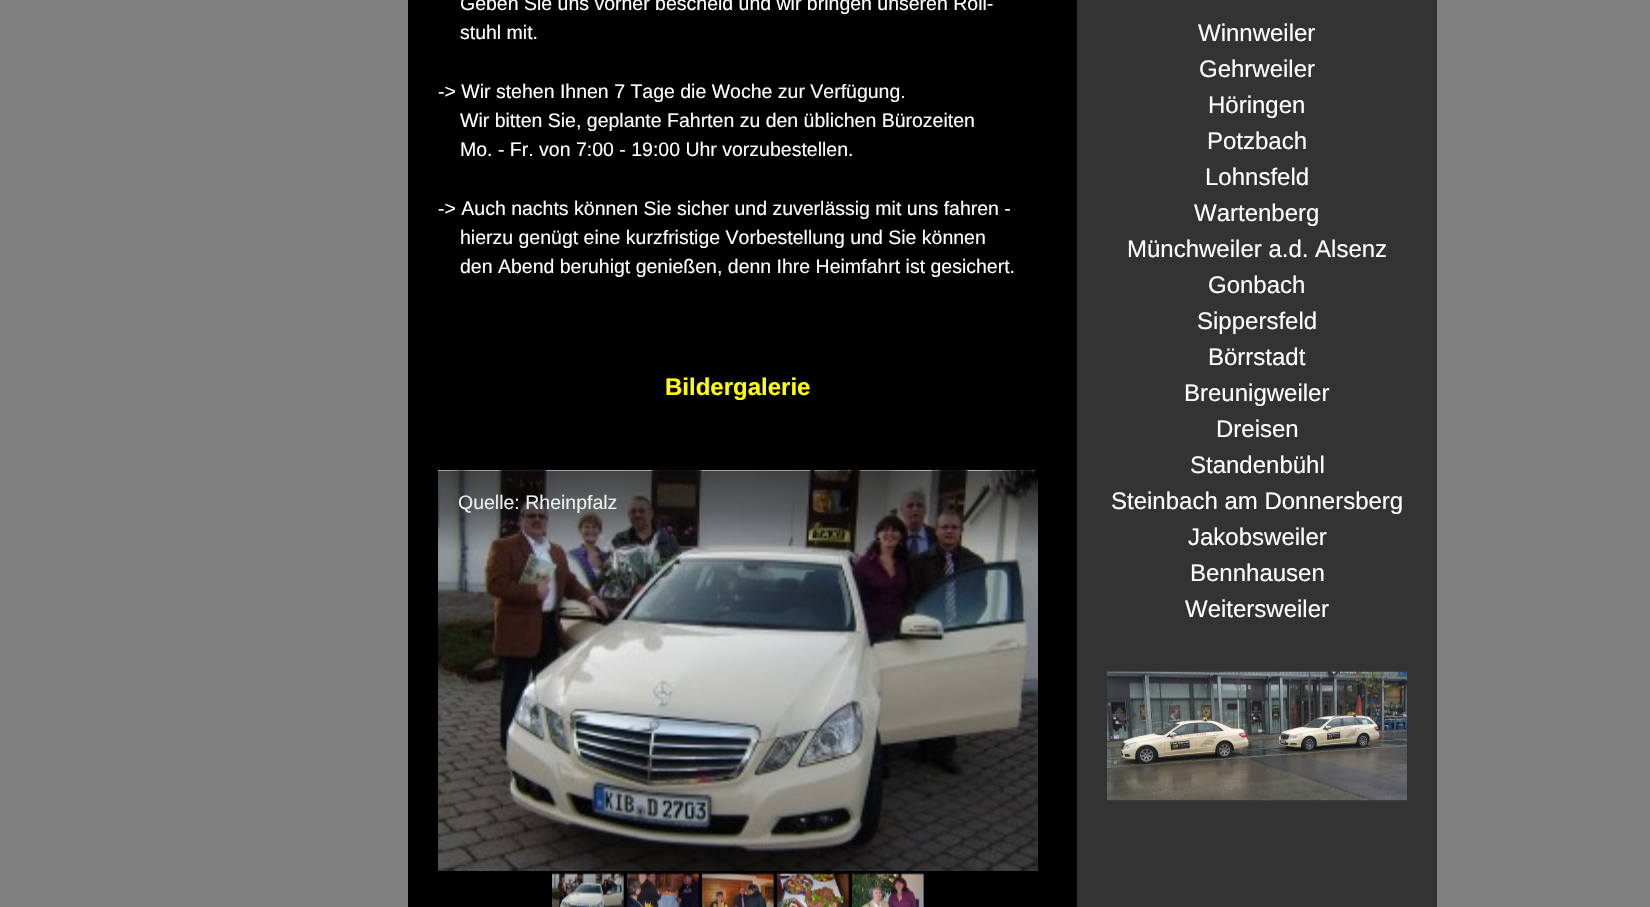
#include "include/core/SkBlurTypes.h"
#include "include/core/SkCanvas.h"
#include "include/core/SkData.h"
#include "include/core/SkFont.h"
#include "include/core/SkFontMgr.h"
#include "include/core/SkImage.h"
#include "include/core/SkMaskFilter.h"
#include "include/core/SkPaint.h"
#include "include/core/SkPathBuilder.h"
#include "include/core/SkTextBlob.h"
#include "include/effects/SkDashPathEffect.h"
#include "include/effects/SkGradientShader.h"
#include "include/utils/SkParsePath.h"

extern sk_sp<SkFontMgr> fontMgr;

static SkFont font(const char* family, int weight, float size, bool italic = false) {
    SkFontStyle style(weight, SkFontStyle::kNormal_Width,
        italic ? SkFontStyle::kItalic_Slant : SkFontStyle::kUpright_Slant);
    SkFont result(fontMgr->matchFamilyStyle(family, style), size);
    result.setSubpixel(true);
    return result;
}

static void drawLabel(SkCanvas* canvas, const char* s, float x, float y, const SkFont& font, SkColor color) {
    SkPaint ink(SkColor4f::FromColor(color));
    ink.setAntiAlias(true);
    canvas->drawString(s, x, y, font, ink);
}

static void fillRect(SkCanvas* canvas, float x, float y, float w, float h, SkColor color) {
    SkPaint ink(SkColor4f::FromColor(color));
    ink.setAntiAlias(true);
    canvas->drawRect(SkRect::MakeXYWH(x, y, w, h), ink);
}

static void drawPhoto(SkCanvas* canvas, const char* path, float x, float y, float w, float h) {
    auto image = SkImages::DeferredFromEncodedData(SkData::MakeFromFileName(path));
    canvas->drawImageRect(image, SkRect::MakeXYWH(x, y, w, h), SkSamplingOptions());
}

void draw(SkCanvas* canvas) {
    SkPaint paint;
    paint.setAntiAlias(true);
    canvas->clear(0xFF808080);
    fillRect(canvas, 408, 0, 669, 907, 0xFF000000);
    SkFont font1 = font("Liberation Sans", 400, 19.5f);
    drawLabel(canvas, "Geben Sie uns vorher bescheid und wir bringen unseren Roll-", 460, 10, font1, 0xFFFFFFFF);
    drawLabel(canvas, "stuhl mit.", 460, 39, font1, 0xFFFFFFFF);
    drawLabel(canvas, "-> Wir stehen Ihnen 7 Tage die Woche zur Verfügung.", 438, 98, font1, 0xFFFFFFFF);
    drawLabel(canvas, "Wir bitten Sie, geplante Fahrten zu den üblichen Bürozeiten", 460, 127, font1, 0xFFFFFFFF);
    drawLabel(canvas, "Mo. - Fr. von 7:00 - 19:00 Uhr vorzubestellen.", 460, 156, font1, 0xFFFFFFFF);
    drawLabel(canvas, "-> Auch nachts können Sie sicher und zuverlässig mit uns fahren -", 438, 215, font1, 0xFFFFFFFF);
    drawLabel(canvas, "hierzu genügt eine kurzfristige Vorbestellung und Sie können", 460, 244, font1, 0xFFFFFFFF);
    drawLabel(canvas, "den Abend beruhigt genießen, denn Ihre Heimfahrt ist gesichert.", 460, 273, font1, 0xFFFFFFFF);
    SkFont font2 = font("Liberation Sans", 700, 24);
    drawLabel(canvas, "Bildergalerie", 665, 395, font2, 0xFFFFFF00);
    drawPhoto(canvas, "assets/img1.png", 438, 470, 600, 401);
    drawLabel(canvas, "Quelle: Rheinpfalz", 458, 509, font1, 0xFFEDEDED);
    drawPhoto(canvas, "assets/img2.png", 552, 873, 72, 34);
    drawPhoto(canvas, "assets/img3.png", 627, 873, 72, 34);
    drawPhoto(canvas, "assets/img4.png", 702, 873, 72, 34);
    drawPhoto(canvas, "assets/img5.png", 777, 873, 72, 34);
    drawPhoto(canvas, "assets/img6.png", 852, 873, 72, 34);
    fillRect(canvas, 1077, 0, 360, 907, 0xFF333333);
    SkFont font3 = font("Liberation Sans", 400, 24);
    drawLabel(canvas, "Winnweiler", 1198, 41, font3, 0xFFFFFFFF);
    drawLabel(canvas, "Gehrweiler", 1199, 77, font3, 0xFFFFFFFF);
    drawLabel(canvas, "Höringen", 1208, 113, font3, 0xFFFFFFFF);
    drawLabel(canvas, "Potzbach", 1207, 149, font3, 0xFFFFFFFF);
    drawLabel(canvas, "Lohnsfeld", 1205, 185, font3, 0xFFFFFFFF);
    drawLabel(canvas, "Wartenberg", 1194, 221, font3, 0xFFFFFFFF);
    drawLabel(canvas, "Münchweiler a.d. Alsenz", 1127, 257, font3, 0xFFFFFFFF);
    drawLabel(canvas, "Gonbach", 1208, 293, font3, 0xFFFFFFFF);
    drawLabel(canvas, "Sippersfeld", 1197, 329, font3, 0xFFFFFFFF);
    drawLabel(canvas, "Börrstadt", 1208, 365, font3, 0xFFFFFFFF);
    drawLabel(canvas, "Breunigweiler", 1184, 401, font3, 0xFFFFFFFF);
    drawLabel(canvas, "Dreisen", 1216, 437, font3, 0xFFFFFFFF);
    drawLabel(canvas, "Standenbühl", 1190, 473, font3, 0xFFFFFFFF);
    drawLabel(canvas, "Steinbach am Donnersberg", 1111, 509, font3, 0xFFFFFFFF);
    drawLabel(canvas, "Jakobsweiler", 1188, 545, font3, 0xFFFFFFFF);
    drawLabel(canvas, "Bennhausen", 1190, 581, font3, 0xFFFFFFFF);
    drawLabel(canvas, "Weitersweiler", 1185, 617, font3, 0xFFFFFFFF);
    drawPhoto(canvas, "assets/img7.png", 1107, 671, 300, 130);
}
